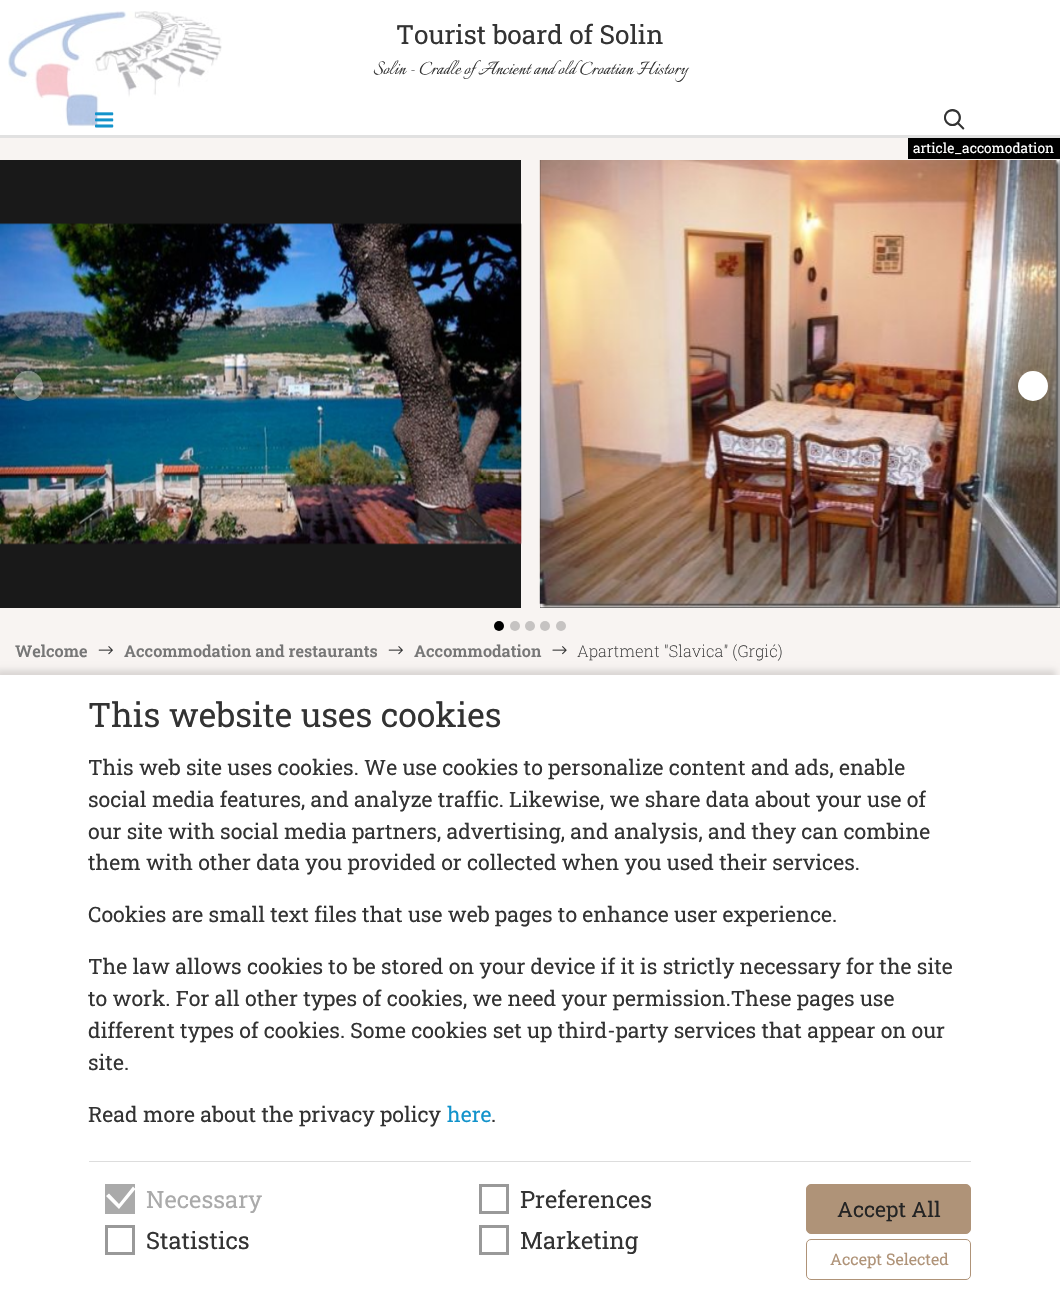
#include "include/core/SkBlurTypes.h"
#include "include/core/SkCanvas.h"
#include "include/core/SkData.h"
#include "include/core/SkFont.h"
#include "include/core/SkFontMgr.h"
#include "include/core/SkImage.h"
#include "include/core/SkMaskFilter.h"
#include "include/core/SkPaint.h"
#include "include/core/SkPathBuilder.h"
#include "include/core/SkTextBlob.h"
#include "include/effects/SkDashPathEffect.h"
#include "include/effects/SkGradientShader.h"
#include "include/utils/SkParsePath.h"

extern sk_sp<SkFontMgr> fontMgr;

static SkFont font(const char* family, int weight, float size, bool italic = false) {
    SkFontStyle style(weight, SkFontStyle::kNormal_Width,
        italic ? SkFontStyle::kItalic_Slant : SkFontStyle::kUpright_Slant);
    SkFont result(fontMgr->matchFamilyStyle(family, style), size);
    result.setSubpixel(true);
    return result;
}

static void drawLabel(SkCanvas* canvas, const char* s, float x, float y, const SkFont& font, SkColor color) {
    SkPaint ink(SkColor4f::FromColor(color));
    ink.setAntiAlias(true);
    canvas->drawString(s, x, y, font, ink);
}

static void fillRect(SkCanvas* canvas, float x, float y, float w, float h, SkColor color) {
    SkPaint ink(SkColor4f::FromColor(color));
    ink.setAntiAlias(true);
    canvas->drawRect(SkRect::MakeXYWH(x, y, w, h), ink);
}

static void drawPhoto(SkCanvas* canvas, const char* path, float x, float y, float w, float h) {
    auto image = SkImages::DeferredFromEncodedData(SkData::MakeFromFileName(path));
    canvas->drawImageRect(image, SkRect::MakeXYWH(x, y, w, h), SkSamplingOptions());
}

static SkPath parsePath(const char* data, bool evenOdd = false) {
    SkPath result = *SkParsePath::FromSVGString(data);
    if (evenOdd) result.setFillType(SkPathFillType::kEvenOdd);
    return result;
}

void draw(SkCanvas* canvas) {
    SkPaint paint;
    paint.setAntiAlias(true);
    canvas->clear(0xFFF8F4F2);
    fillRect(canvas, 0, 0, 1060, 135, 0xFFFFFFFF);
    fillRect(canvas, 0, 135, 1060, 3, 0xFFE1E1E1);
    drawPhoto(canvas, "assets/img1.png", 8, 11, 214, 116);
    SkFont font1 = font("Roboto Slab", 400, 26.25f);
    drawLabel(canvas, "Tourist board of Solin", 396, 44, font1, 0xFF333333);
    SkFont font2 = font("Italianno", 400, 22.5f);
    drawLabel(canvas, "Solin - Cradle of Ancient and old Croatian History", 373, 74, font2, 0xFF333333);
    drawPhoto(canvas, "assets/img2.png", 95, 112, 19, 16);
    SkFont font3 = font("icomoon", 400, 21.25f);
    drawLabel(canvas, "@", 944, 129, font3, 0xFF333333);
    fillRect(canvas, 908, 138, 152, 21, 0xFF000000);
    SkFont font4 = font("Roboto Slab", 400, 13.75f);
    drawLabel(canvas, "article_accomodation", 913, 153, font4, 0xFFFFFFFF);
    fillRect(canvas, 0, 160, 521, 448, 0xFF191919);
    drawPhoto(canvas, "assets/img3.png", 0, 223, 522, 322);
    fillRect(canvas, 540, 160, 520, 448, 0xFF191919);
    drawPhoto(canvas, "assets/img4.png", 539, 160, 521, 448);
    paint.setColor(0x59FFFFFF);
    canvas->drawCircle(28, 386, 15, paint);
    paint.setColor(0xFFFFFFFF);
    canvas->drawCircle(1033, 386, 15, paint);
    paint.setColor(0xFF000000);
    canvas->drawCircle(499, 626, 5, paint);
    paint.setColor(0xFFC6C3C2);
    canvas->drawCircle(515, 626, 5, paint);
    canvas->drawCircle(530, 626, 5, paint);
    canvas->drawCircle(545, 626, 5, paint);
    canvas->drawCircle(561, 626, 5, paint);
    SkFont font5 = font("Roboto Slab", 600, 16.25f);
    drawLabel(canvas, "Welcome", 15, 657, font5, 0xFF777777);
    drawPhoto(canvas, "assets/img5.png", 98, 646, 15, 9);
    drawLabel(canvas, "Accommodation and restaurants", 124, 657, font5, 0xFF777777);
    drawPhoto(canvas, "assets/img5.png", 388, 646, 15, 9);
    drawLabel(canvas, "Accommodation", 414, 657, font5, 0xFF777777);
    drawPhoto(canvas, "assets/img6.png", 552, 646, 15, 9);
    SkFont font6 = font("Roboto Slab", 200, 16.25f);
    drawLabel(canvas, "Apartment \"Slavica\" (Grgić)", 577, 657, font6, 0xFF333333);
    paint.setColor(0x1F000000);
    paint.setMaskFilter(SkMaskFilter::MakeBlur(kNormal_SkBlurStyle, 3));
    canvas->drawRect(SkRect::MakeXYWH(-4, 670, 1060, 635), paint);
    paint.setMaskFilter(nullptr);
    fillRect(canvas, 0, 675, 1060, 634, 0xFFFFFFFF);
    fillRect(canvas, 89, 1161, 882, 1, 0xFFDDDDDD);
    SkFont font7 = font("Roboto Slab", 400, 33.75f);
    drawLabel(canvas, "This website uses cookies", 88, 727, font7, 0xFF333333);
    SkFont font8 = font("Roboto Slab", 400, 21.25f);
    drawLabel(canvas, "This web site uses cookies. We use cookies to personalize content and ads, enable", 88, 775, font8, 0xFF333333);
    drawLabel(canvas, "social media features, and analyze traffic. Likewise, we share data about your use of", 88, 807, font8, 0xFF333333);
    drawLabel(canvas, "our site with social media partners, advertising, and analysis, and they can combine", 88, 839, font8, 0xFF333333);
    drawLabel(canvas, "them with other data you provided or collected when you used their services.", 88, 870, font8, 0xFF333333);
    drawLabel(canvas, "Cookies are small text files that use web pages to enhance user experience.", 88, 922, font8, 0xFF333333);
    drawLabel(canvas, "The law allows cookies to be stored on your device if it is strictly necessary for the site", 88, 974, font8, 0xFF333333);
    drawLabel(canvas, "to work. For all other types of cookies, we need your permission.These pages use", 88, 1006, font8, 0xFF333333);
    drawLabel(canvas, "different types of cookies. Some cookies set up third-party services that appear on our", 88, 1038, font8, 0xFF333333);
    drawLabel(canvas, "site.", 88, 1070, font8, 0xFF333333);
    drawLabel(canvas, "Read more about the privacy policy", 88, 1122, font8, 0xFF333333);
    drawLabel(canvas, "here", 447, 1122, font8, 0xFF1293CB);
    drawLabel(canvas, ".", 491, 1122, font8, 0xFF333333);
    fillRect(canvas, 105, 1184, 30, 30, 0xFFAAAAAA);
    paint.setColor(0xFFFFFFFF);
    canvas->drawPath(parsePath("M106 1196L109 1193.5L119 1204L133 1186.5L135.5 1189L119 1209Z"), paint);
    SkFont font9 = font("Roboto Slab", 400, 23.75f);
    drawLabel(canvas, "Necessary", 146, 1208, font9, 0xFFAAAAAA);
    paint.setStroke(true);
    paint.setStrokeWidth(3);
    paint.setColor(0xFF999999);
    canvas->drawRect(SkRect::MakeXYWH(480.5f, 1185.5f, 27, 27), paint);
    drawLabel(canvas, "Preferences", 520, 1208, font9, 0xFF333333);
    canvas->drawRect(SkRect::MakeXYWH(106.5f, 1226.5f, 27, 27), paint);
    drawLabel(canvas, "Statistics", 146, 1249, font9, 0xFF333333);
    canvas->drawRect(SkRect::MakeXYWH(480.5f, 1226.5f, 27, 27), paint);
    drawLabel(canvas, "Marketing", 520, 1249, font9, 0xFF333333);
    paint.setStroke(false);
    paint.setColor(0xFFAF9378);
    canvas->drawRoundRect(SkRect::MakeXYWH(806.5f, 1184.5f, 164, 49), 4.5f, 4.5f, paint);
    paint.setStroke(true);
    paint.setStrokeWidth(1);
    canvas->drawRoundRect(SkRect::MakeXYWH(806.5f, 1184.5f, 164, 49), 4.5f, 4.5f, paint);
    drawLabel(canvas, "Accept All", 837, 1217, font8, 0xFF242424);
    canvas->drawRoundRect(SkRect::MakeXYWH(806.5f, 1239.5f, 164, 40), 4.5f, 4.5f, paint);
    SkFont font10 = font("Roboto Slab", 400, 16);
    drawLabel(canvas, "Accept Selected", 830, 1265, font10, 0xFFAF9378);
}
